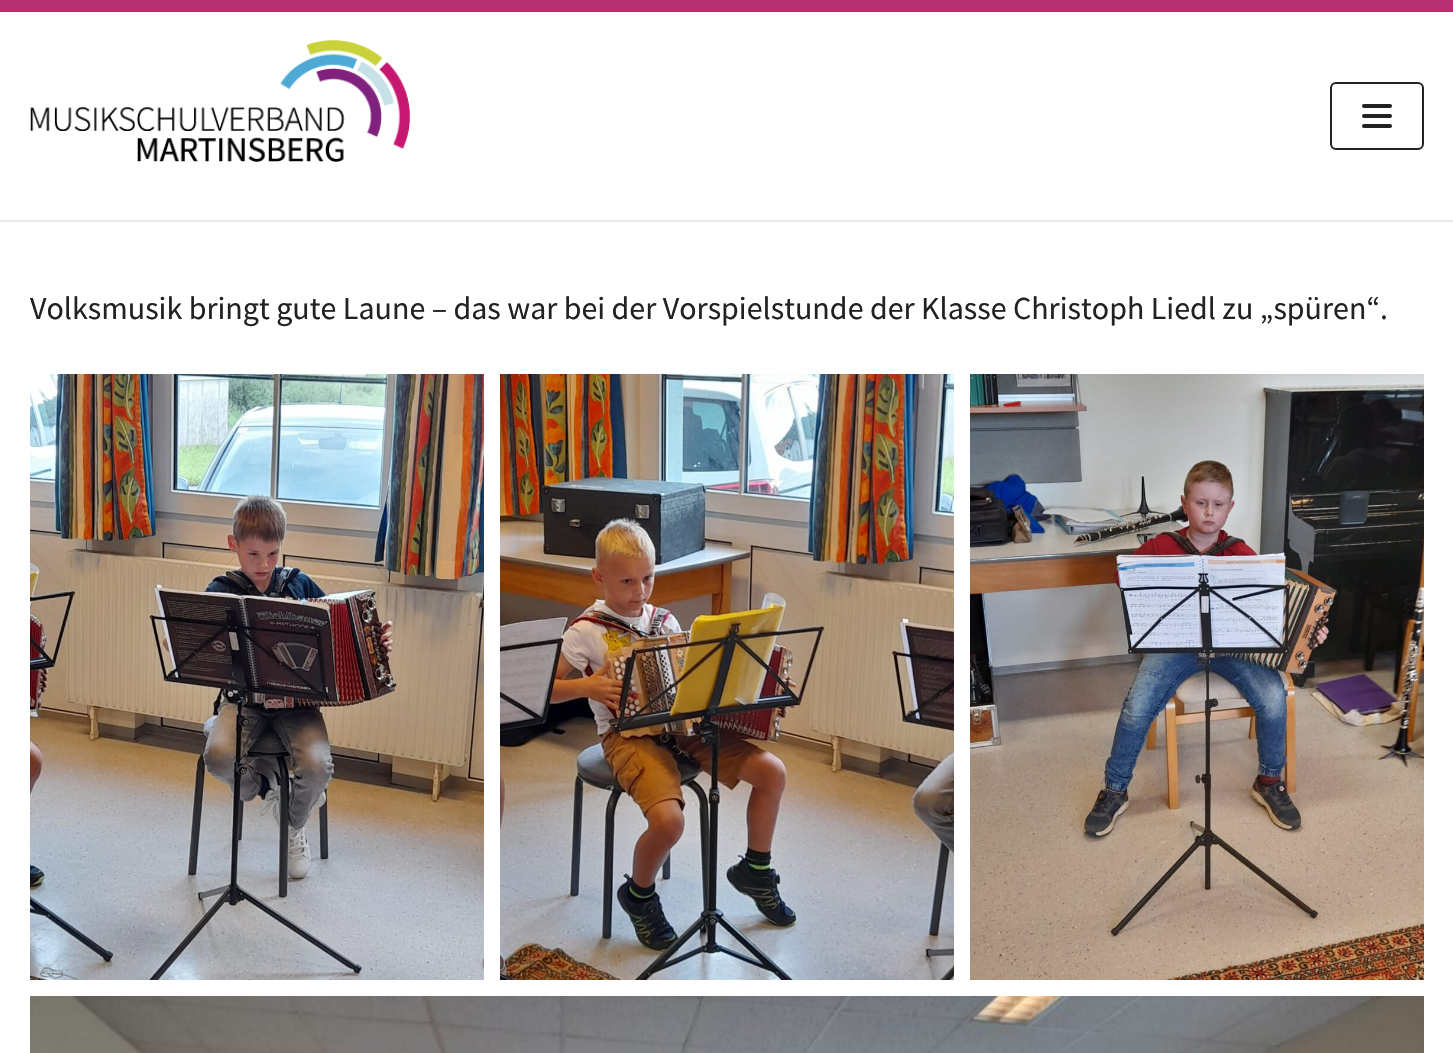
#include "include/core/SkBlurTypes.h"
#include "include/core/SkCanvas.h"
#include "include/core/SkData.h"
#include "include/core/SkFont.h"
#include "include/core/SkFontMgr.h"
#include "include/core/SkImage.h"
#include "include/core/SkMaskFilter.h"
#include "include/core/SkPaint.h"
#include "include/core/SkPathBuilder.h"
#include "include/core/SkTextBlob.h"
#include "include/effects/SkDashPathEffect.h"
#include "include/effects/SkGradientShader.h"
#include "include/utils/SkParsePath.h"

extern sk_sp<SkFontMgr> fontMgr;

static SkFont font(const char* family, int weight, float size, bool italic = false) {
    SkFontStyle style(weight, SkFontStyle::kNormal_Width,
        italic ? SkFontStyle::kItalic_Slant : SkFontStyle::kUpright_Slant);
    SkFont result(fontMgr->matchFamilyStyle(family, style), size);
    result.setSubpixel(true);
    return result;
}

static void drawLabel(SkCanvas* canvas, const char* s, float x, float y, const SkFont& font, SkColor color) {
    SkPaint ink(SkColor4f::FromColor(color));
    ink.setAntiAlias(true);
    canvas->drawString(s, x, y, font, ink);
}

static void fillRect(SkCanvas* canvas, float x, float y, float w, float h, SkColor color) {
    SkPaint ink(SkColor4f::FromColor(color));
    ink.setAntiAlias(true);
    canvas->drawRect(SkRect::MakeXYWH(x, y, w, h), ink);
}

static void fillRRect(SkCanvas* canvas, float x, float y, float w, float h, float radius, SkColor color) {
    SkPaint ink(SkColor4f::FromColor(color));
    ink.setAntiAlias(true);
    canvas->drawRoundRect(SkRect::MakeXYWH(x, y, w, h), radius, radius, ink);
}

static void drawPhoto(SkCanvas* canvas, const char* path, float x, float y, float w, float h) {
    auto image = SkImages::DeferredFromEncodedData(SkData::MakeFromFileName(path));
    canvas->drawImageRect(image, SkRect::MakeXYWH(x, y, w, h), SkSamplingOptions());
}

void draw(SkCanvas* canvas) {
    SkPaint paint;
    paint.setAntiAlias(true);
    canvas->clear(0xFFB7306F);
    fillRect(canvas, 0, 12, 1453, 1041, 0xFFFFFFFF);
    fillRect(canvas, 0, 220, 1453, 2, 0xFFEAEAEA);
    drawPhoto(canvas, "assets/img1.png", 30, 40, 380, 122);
    paint.setStroke(true);
    paint.setStrokeWidth(2);
    paint.setColor(0xFF222222);
    canvas->drawRoundRect(SkRect::MakeXYWH(1331, 83, 92, 66), 5, 5, paint);
    fillRRect(canvas, 1362, 104, 30, 4, 2, 0xFF222222);
    fillRRect(canvas, 1362, 114, 30, 4, 2, 0xFF222222);
    fillRRect(canvas, 1362, 124, 30, 4, 2, 0xFF222222);
    SkFont font1 = font("Source Sans Pro", 400, 32);
    drawLabel(canvas, "Volksmusik bringt gute Laune – das war bei der Vorspielstunde der Klasse Christoph Liedl zu „spüren“.", 30, 319, font1, 0xFF222222);
    drawPhoto(canvas, "assets/img2.png", 30, 374, 454, 606);
    drawPhoto(canvas, "assets/img3.png", 500, 374, 454, 606);
    drawPhoto(canvas, "assets/img4.png", 970, 374, 454, 606);
    drawPhoto(canvas, "assets/img5.png", 30, 996, 1394, 57);
}
